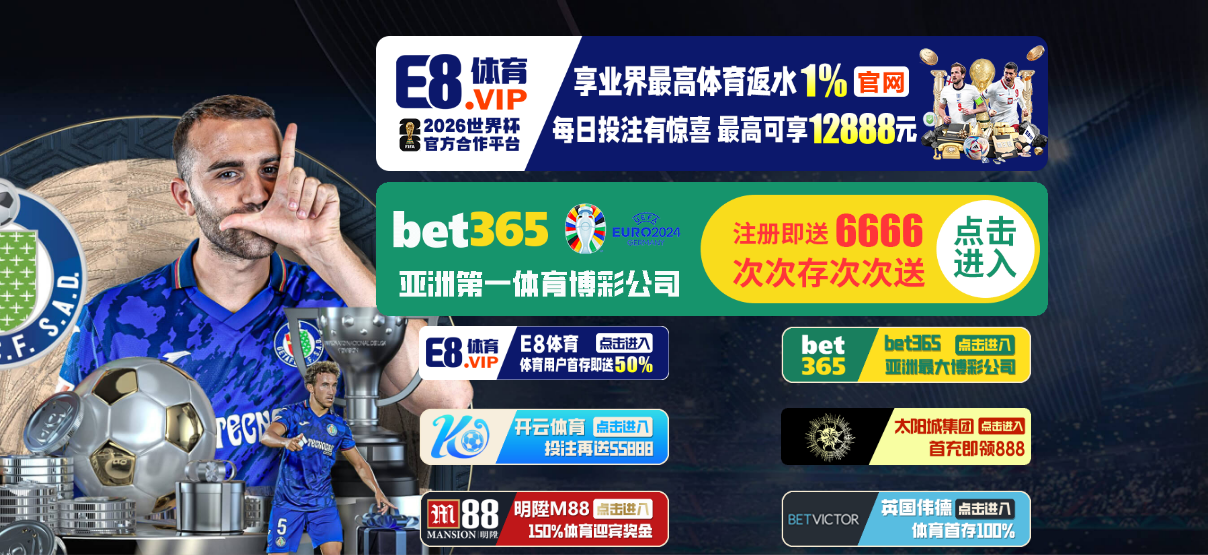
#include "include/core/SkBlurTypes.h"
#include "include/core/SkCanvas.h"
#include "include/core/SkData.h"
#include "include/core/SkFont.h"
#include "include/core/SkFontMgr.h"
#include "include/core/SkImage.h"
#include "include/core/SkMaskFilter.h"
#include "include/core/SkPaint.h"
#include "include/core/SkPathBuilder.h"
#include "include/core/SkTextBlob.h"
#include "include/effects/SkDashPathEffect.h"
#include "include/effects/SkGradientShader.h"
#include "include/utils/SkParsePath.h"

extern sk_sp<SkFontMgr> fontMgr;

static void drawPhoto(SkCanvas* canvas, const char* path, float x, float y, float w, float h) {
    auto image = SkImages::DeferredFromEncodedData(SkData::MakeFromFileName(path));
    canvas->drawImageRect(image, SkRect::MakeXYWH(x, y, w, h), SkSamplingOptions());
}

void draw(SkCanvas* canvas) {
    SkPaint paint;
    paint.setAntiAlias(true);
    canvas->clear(0xFFFFFFFF);
    drawPhoto(canvas, "assets/img2.png", 4, 554, 590, 1);
    drawPhoto(canvas, "assets/img1.png", 0, 0, 1208, 555);
}
